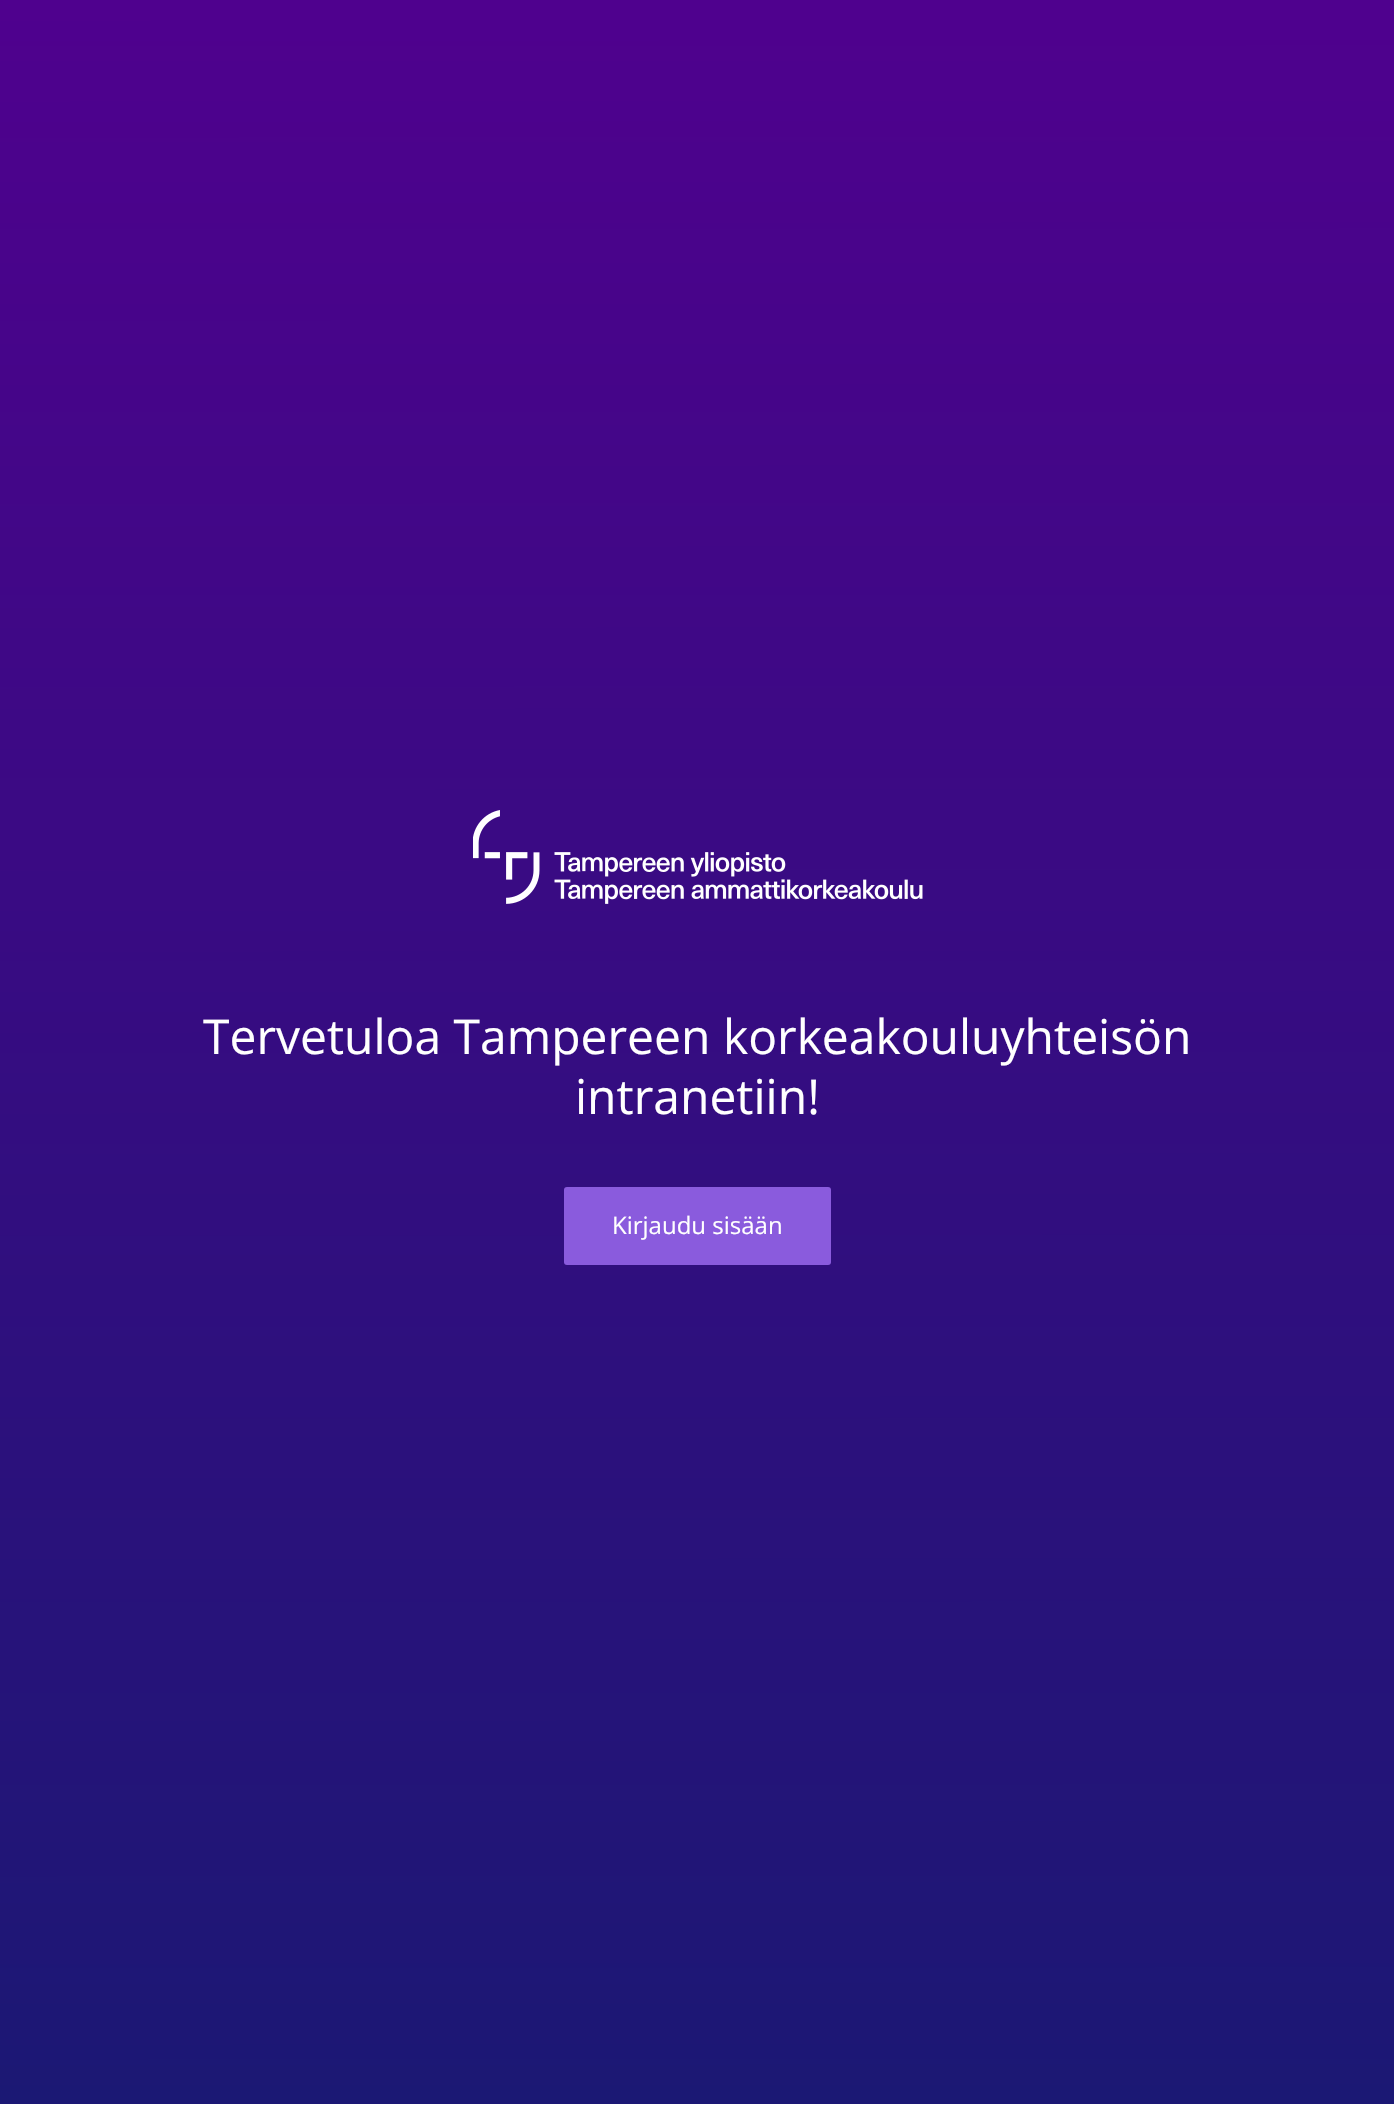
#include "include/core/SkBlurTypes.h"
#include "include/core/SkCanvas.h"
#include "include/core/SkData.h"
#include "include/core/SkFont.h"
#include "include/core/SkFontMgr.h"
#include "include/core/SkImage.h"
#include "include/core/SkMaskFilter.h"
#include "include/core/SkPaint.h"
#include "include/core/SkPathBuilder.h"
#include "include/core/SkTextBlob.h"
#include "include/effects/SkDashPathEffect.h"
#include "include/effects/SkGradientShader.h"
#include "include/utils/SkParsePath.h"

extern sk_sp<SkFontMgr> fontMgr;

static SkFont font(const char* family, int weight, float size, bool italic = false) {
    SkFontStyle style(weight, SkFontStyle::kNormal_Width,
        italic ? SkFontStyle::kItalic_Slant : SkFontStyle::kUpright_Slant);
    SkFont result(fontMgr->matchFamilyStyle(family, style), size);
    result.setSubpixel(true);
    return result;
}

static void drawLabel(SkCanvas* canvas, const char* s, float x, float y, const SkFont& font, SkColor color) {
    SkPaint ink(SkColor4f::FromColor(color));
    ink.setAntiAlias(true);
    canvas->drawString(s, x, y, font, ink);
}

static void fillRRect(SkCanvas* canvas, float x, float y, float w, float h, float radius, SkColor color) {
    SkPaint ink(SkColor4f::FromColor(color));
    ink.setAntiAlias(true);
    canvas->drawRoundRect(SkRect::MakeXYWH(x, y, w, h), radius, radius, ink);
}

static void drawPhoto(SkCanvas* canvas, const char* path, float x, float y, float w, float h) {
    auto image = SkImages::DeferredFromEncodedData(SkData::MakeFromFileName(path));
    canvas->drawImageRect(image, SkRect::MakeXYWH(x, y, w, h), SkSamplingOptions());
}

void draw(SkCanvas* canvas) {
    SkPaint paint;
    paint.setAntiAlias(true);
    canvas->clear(0xFFFFFFFF);
    {
        const SkColor colors[] = {0xFF4F018E, 0xFF1B1874};
        const float stops[] = {0, 1};
        const SkPoint ends[] = {{697, 0}, {698, 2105}};
        paint.setShader(SkGradientShader::MakeLinear(ends, colors, stops, 2, SkTileMode::kClamp));
        paint.setAlpha(255);
    }
    canvas->drawRect(SkRect::MakeXYWH(0, 0, 1394, 2104), paint);
    drawPhoto(canvas, "assets/img1.png", 473, 810, 450, 94);
    SkFont font1 = font("Open Sans", 400, 48);
    drawLabel(canvas, "Tervetuloa Tampereen korkeakouluyhteisön", 203, 1054, font1, 0xFFFFFFFF);
    drawLabel(canvas, "intranetiin!", 575, 1114, font1, 0xFFFFFFFF);
    fillRRect(canvas, 564, 1187, 267, 78, 3, 0xFF8A5BDD);
    SkFont font2 = font("Open Sans", 400, 24);
    drawLabel(canvas, "Kirjaudu sisään", 612, 1234, font2, 0xFFFFFFFF);
}
